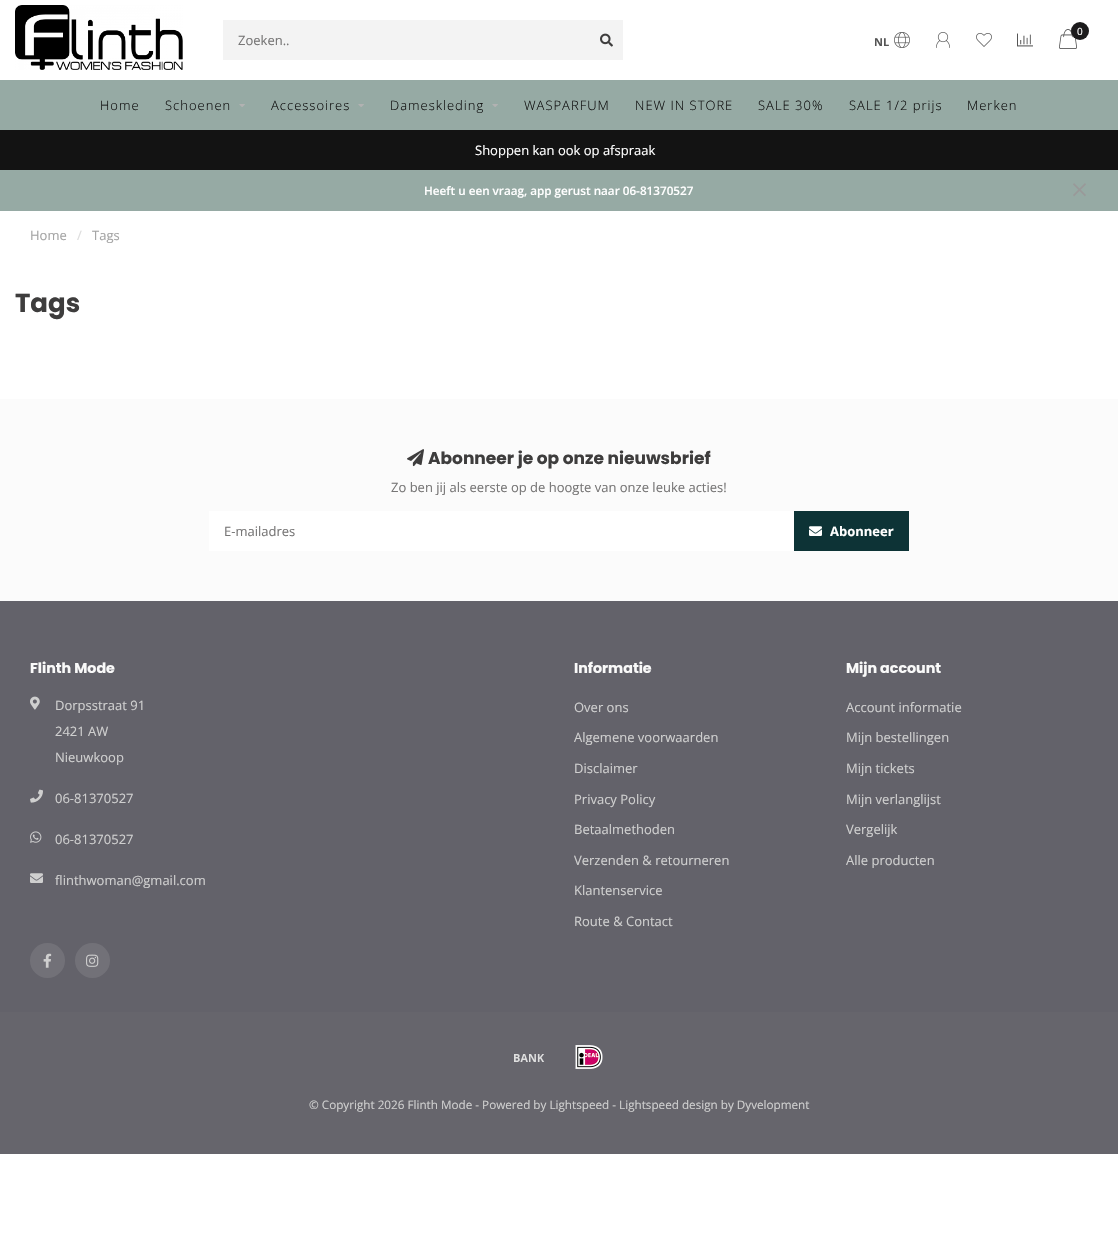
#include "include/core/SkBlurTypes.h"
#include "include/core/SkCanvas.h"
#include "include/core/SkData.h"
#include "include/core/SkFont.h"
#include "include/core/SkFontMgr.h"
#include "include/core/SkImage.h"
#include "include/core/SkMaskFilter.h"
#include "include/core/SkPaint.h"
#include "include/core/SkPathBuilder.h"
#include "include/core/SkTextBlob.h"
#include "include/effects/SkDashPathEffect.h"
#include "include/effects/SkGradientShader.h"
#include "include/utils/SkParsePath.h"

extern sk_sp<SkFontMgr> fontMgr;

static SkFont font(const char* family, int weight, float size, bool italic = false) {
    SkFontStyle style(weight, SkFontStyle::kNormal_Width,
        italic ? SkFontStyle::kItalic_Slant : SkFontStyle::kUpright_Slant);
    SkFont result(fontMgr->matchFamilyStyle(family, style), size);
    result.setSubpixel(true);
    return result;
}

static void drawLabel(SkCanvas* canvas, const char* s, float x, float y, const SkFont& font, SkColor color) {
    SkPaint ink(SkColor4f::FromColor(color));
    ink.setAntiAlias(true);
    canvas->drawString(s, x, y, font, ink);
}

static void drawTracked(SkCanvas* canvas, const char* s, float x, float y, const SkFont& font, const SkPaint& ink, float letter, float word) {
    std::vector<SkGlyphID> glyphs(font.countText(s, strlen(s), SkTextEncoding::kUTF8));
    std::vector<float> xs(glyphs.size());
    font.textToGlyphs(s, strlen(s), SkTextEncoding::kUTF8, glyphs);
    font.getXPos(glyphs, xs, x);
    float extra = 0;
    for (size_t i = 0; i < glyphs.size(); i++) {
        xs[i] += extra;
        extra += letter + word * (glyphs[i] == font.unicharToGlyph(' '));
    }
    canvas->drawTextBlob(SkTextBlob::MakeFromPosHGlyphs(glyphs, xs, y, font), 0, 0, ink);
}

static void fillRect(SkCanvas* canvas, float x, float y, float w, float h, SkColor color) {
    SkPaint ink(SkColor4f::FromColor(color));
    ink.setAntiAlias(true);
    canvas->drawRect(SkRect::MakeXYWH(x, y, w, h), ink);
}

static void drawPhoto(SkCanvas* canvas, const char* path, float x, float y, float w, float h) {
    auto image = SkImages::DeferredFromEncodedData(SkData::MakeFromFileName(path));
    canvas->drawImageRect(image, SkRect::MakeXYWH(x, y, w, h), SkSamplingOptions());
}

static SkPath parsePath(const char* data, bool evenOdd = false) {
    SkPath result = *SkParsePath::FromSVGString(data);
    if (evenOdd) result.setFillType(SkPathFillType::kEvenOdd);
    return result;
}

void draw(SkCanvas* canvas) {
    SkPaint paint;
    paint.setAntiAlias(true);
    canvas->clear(0xFFFFFFFF);
    drawPhoto(canvas, "assets/img1.png", 15, 5, 168, 65);
    fillRect(canvas, 223, 20, 400, 40, 0xFFF3F3F3);
    SkFont font1 = font("Open Sans", 400, 13);
    drawLabel(canvas, "Zoeken..", 238, 45, font1, 0xFF777676);
    drawPhoto(canvas, "assets/img2.png", 600, 33, 13, 14);
    drawPhoto(canvas, "assets/img3.png", 1059, 29, 18, 20);
    paint.setColor(0xFF1B1A1B);
    canvas->drawCircle(1080, 31, 9, paint);
    SkFont font2 = font("Open Sans", 400, 10);
    drawLabel(canvas, "0", 1077, 35, font2, 0xFFFFFFFF);
    SkFont font3 = font("Open Sans", 700, 11);
    drawLabel(canvas, "NL", 874, 46, font3, 0xFF555555);
    drawPhoto(canvas, "assets/img4.png", 894, 32, 16, 16);
    drawPhoto(canvas, "assets/img5.png", 936, 32, 14, 16);
    drawPhoto(canvas, "assets/img6.png", 976, 33, 16, 14);
    drawPhoto(canvas, "assets/img7.png", 1017, 33, 16, 14);
    fillRect(canvas, 0, 80, 1118, 50, 0xFF96AAA4);
    SkFont font4 = font("Open Sans", 300, 13);
    paint.setColor(0xFF0E0E0E);
    drawTracked(canvas, "Home", 100, 110, font4, paint, 1, 0);
    drawTracked(canvas, "Schoenen", 165, 110, font4, paint, 1, 0);
    drawPhoto(canvas, "assets/img8.png", 239, 104, 6, 3);
    drawTracked(canvas, "Accessoires", 271, 110, font4, paint, 1, 0);
    drawPhoto(canvas, "assets/img8.png", 358, 104, 6, 3);
    drawTracked(canvas, "Dameskleding", 390, 110, font4, paint, 1, 0);
    drawPhoto(canvas, "assets/img8.png", 492, 104, 6, 3);
    drawTracked(canvas, "WASPARFUM", 524, 110, font4, paint, 1, 0);
    drawTracked(canvas, "NEW IN STORE", 635, 110, font4, paint, 1, 0);
    drawTracked(canvas, "SALE 30%", 758, 110, font4, paint, 1, 0);
    drawTracked(canvas, "SALE 1/2 prijs", 849, 110, font4, paint, 1, 0);
    drawTracked(canvas, "Merken", 967, 110, font4, paint, 1, 0);
    fillRect(canvas, 0, 130, 1118, 40, 0xFF131313);
    drawLabel(canvas, "Shoppen kan ook op afspraak", 475, 155, font1, 0xFFFFFFFF);
    fillRect(canvas, 0, 170, 1118, 41, 0xFF96AAA4);
    SkFont font5 = font("Open Sans", 600, 11.7f);
    drawLabel(canvas, "Heeft u een vraag, app gerust naar 06-81370527", 424, 195, font5, 0xFFFFFFFF);
    paint.setColor(0xFF999999);
    canvas->drawPath(parsePath("M1074 183L1086 195L1085 196.5L1073 184.5Z"), paint);
    canvas->drawPath(parsePath("M1073 195L1085 183L1086 184.5L1074 196.5Z"), paint);
    drawLabel(canvas, "Home", 30, 240, font1, 0xFFA5A5A5);
    drawLabel(canvas, "/", 77, 240, font1, 0xFFDDDDDD);
    drawLabel(canvas, "Tags", 92, 240, font1, 0xFFA5A5A5);
    SkFont font6 = font("Poppins", 700, 26);
    drawLabel(canvas, "Tags", 15, 312, font6, 0xFF3E3D3D);
    fillRect(canvas, 0, 399, 1118, 202, 0xFFFBFBFB);
    drawPhoto(canvas, "assets/img9.png", 407, 449, 17, 18);
    SkFont font7 = font("Poppins", 700, 17);
    drawLabel(canvas, "Abonneer je op onze nieuwsbrief", 428, 464, font7, 0xFF3E3D3D);
    drawLabel(canvas, "Zo ben jij als eerste op de hoogte van onze leuke acties!", 391, 492, font1, 0xFF777676);
    fillRect(canvas, 209, 511, 585, 40, 0xFFFFFFFF);
    drawLabel(canvas, "E-mailadres", 224, 536, font1, 0xFF777676);
    fillRect(canvas, 794, 511, 115, 40, 0xFF0D3336);
    drawPhoto(canvas, "assets/img10.png", 809, 526, 13, 10);
    SkFont font8 = font("Open Sans", 700, 13);
    drawLabel(canvas, "Abonneer", 830, 536, font8, 0xFFFFFFFF);
    fillRect(canvas, 0, 601, 1118, 411, 0xFF63626A);
    SkFont font9 = font("Poppins", 700, 14.25f);
    drawLabel(canvas, "Flinth Mode", 30, 673, font9, 0xFFF9F9F9);
    drawPhoto(canvas, "assets/img11.png", 30, 696, 10, 14);
    drawLabel(canvas, "Dorpsstraat 91", 55, 710, font1, 0xFFCFCFCF);
    drawLabel(canvas, "2421 AW", 55, 736, font1, 0xFFCFCFCF);
    drawLabel(canvas, "Nieuwkoop", 55, 762, font1, 0xFFCFCFCF);
    drawPhoto(canvas, "assets/img12.png", 30, 789, 13, 14);
    drawLabel(canvas, "06-81370527", 55, 803, font1, 0xFFCFCFCF);
    drawPhoto(canvas, "assets/img13.png", 30, 831, 12, 12);
    drawLabel(canvas, "06-81370527", 55, 844, font1, 0xFFCFCFCF);
    drawPhoto(canvas, "assets/img14.png", 30, 873, 13, 10);
    drawLabel(canvas, "flinthwoman@gmail.com", 55, 885, font1, 0xFFCFCFCF);
    paint.setColor(0xFF727178);
    canvas->drawCircle(47.5f, 960.5f, 17.5f, paint);
    drawPhoto(canvas, "assets/img15.png", 43, 953, 9, 15);
    canvas->drawCircle(92.5f, 960.5f, 17.5f, paint);
    drawPhoto(canvas, "assets/img16.png", 86, 954, 13, 13);
    drawLabel(canvas, "Informatie", 574, 673, font9, 0xFFF9F9F9);
    drawLabel(canvas, "Over ons", 574, 712, font1, 0xFFCFCFCF);
    drawLabel(canvas, "Algemene voorwaarden", 574, 742, font1, 0xFFCFCFCF);
    drawLabel(canvas, "Disclaimer", 574, 773, font1, 0xFFCFCFCF);
    drawLabel(canvas, "Privacy Policy", 574, 804, font1, 0xFFCFCFCF);
    drawLabel(canvas, "Betaalmethoden", 574, 834, font1, 0xFFCFCFCF);
    drawLabel(canvas, "Verzenden & retourneren", 574, 865, font1, 0xFFCFCFCF);
    drawLabel(canvas, "Klantenservice", 574, 895, font1, 0xFFCFCFCF);
    drawLabel(canvas, "Route & Contact", 574, 926, font1, 0xFFCFCFCF);
    drawLabel(canvas, "Mijn account", 846, 673, font9, 0xFFF9F9F9);
    drawLabel(canvas, "Account informatie", 846, 712, font1, 0xFFCFCFCF);
    drawLabel(canvas, "Mijn bestellingen", 846, 742, font1, 0xFFCFCFCF);
    drawLabel(canvas, "Mijn tickets", 846, 773, font1, 0xFFCFCFCF);
    drawLabel(canvas, "Mijn verlanglijst", 846, 804, font1, 0xFFCFCFCF);
    drawLabel(canvas, "Vergelijk", 846, 834, font1, 0xFFCFCFCF);
    drawLabel(canvas, "Alle producten", 846, 865, font1, 0xFFCFCFCF);
    fillRect(canvas, 0, 1012, 1118, 142, 0xFF66656C);
    drawPhoto(canvas, "assets/img17.png", 514, 1054, 31, 8);
    drawPhoto(canvas, "assets/img18.png", 575, 1045, 28, 24);
    SkFont font10 = font("Open Sans", 400, 11.7f);
    drawLabel(canvas, "© Copyright 2026 Flinth Mode - Powered by Lightspeed - Lightspeed design by Dyvelopment", 309, 1109, font10, 0xFFCFCFCF);
}
